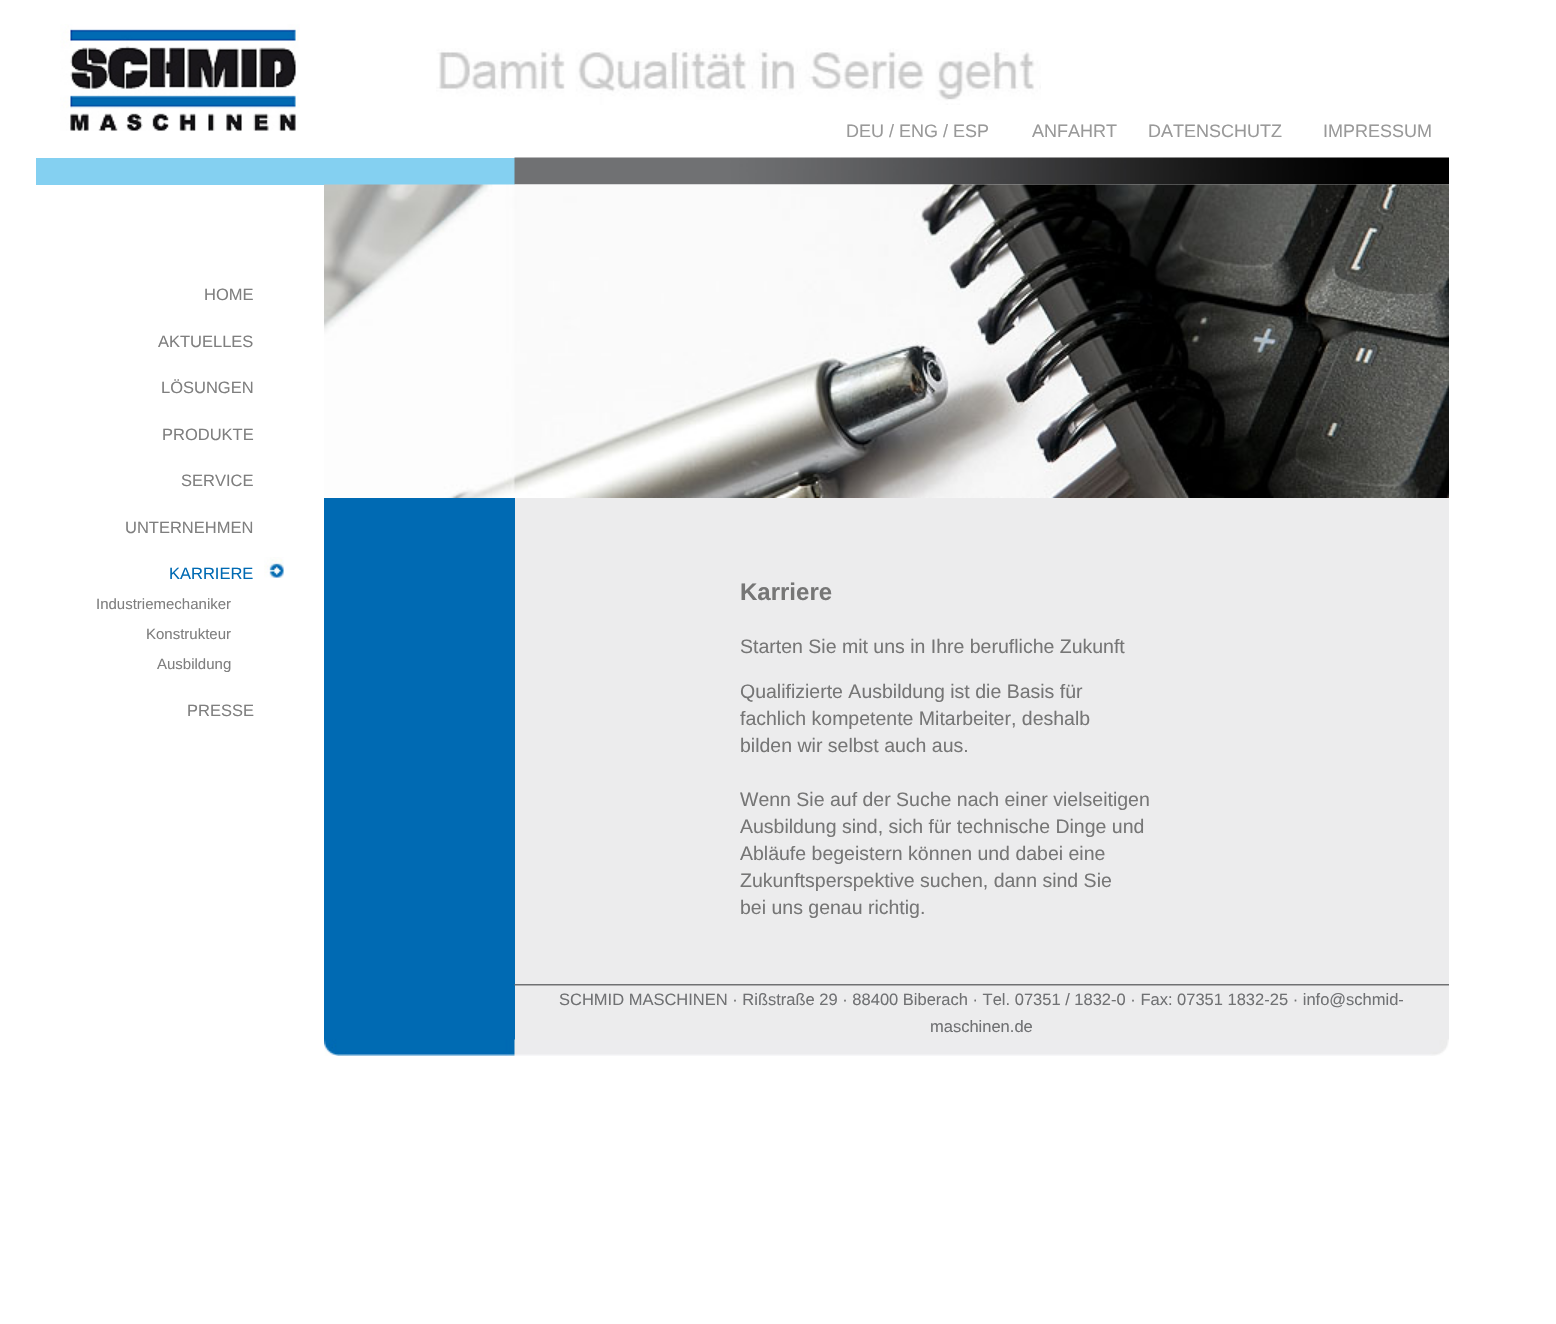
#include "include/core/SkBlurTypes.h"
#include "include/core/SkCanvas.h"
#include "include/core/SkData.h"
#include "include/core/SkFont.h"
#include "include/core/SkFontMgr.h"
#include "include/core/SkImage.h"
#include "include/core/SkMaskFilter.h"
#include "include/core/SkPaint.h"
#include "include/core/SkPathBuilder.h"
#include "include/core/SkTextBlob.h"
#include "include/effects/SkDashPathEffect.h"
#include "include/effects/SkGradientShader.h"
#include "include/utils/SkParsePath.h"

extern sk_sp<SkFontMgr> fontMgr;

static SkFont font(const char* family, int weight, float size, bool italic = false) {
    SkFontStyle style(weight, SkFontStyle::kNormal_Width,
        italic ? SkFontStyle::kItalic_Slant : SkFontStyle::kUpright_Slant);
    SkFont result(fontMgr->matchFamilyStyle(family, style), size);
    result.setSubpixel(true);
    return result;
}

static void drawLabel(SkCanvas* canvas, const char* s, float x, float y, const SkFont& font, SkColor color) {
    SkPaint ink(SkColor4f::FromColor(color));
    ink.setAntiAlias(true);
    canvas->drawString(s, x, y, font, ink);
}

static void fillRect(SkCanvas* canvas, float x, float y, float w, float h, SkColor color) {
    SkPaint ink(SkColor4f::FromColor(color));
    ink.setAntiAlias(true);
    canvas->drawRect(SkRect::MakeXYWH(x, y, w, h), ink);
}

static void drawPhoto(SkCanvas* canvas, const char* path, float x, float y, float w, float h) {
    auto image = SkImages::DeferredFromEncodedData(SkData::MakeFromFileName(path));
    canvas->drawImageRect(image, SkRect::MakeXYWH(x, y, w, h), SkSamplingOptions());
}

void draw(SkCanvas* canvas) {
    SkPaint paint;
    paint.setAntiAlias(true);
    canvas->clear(0xFFFFFFFF);
    drawPhoto(canvas, "assets/img1.png", 60, 24, 240, 107);
    drawPhoto(canvas, "assets/img2.png", 436, 48, 605, 57);
    SkFont font1 = font("Liberation Sans", 400, 18);
    drawLabel(canvas, "DEU / ENG / ESP", 846, 137, font1, 0xFF999999);
    drawLabel(canvas, "ANFAHRT", 1032, 137, font1, 0xFF999999);
    drawLabel(canvas, "DATENSCHUTZ", 1148, 137, font1, 0xFF999999);
    drawLabel(canvas, "IMPRESSUM", 1323, 137, font1, 0xFF999999);
    fillRect(canvas, 36, 158, 479, 27, 0xFF84D0F1);
    drawPhoto(canvas, "assets/img3.png", 514, 157, 935, 28);
    SkFont font2 = font("Liberation Sans", 400, 16.5f);
    drawLabel(canvas, "HOME", 204, 300, font2, 0xFF7F7F7F);
    drawLabel(canvas, "AKTUELLES", 158, 347, font2, 0xFF7F7F7F);
    drawLabel(canvas, "LÖSUNGEN", 161, 393, font2, 0xFF7F7F7F);
    drawLabel(canvas, "PRODUKTE", 162, 440, font2, 0xFF7F7F7F);
    drawLabel(canvas, "SERVICE", 181, 486, font2, 0xFF7F7F7F);
    drawLabel(canvas, "UNTERNEHMEN", 125, 533, font2, 0xFF7F7F7F);
    drawPhoto(canvas, "assets/img4.png", 264, 557, 20, 21);
    drawLabel(canvas, "KARRIERE", 169, 579, font2, 0xFF006AB3);
    SkFont font3 = font("Liberation Sans", 400, 15);
    drawLabel(canvas, "Industriemechaniker", 96, 609, font3, 0xFF7F7F7F);
    drawLabel(canvas, "Konstrukteur", 146, 639, font3, 0xFF7F7F7F);
    drawLabel(canvas, "Ausbildung", 157, 669, font3, 0xFF7F7F7F);
    drawLabel(canvas, "PRESSE", 187, 716, font2, 0xFF7F7F7F);
    drawPhoto(canvas, "assets/img5.png", 324, 184, 1125, 314);
    fillRect(canvas, 324, 498, 191, 542, 0xFF006AB3);
    fillRect(canvas, 515, 498, 934, 542, 0xFFECECED);
    SkFont font4 = font("Liberation Sans", 700, 24);
    drawLabel(canvas, "Karriere", 740, 600, font4, 0xFF767676);
    SkFont font5 = font("Liberation Sans", 400, 19.5f);
    drawLabel(canvas, "Starten Sie mit uns in Ihre berufliche Zukunft", 740, 653, font5, 0xFF767676);
    drawLabel(canvas, "Qualifizierte Ausbildung ist die Basis für", 740, 698, font5, 0xFF767676);
    drawLabel(canvas, "fachlich kompetente Mitarbeiter, deshalb", 740, 725, font5, 0xFF767676);
    drawLabel(canvas, "bilden wir selbst auch aus.", 740, 752, font5, 0xFF767676);
    drawLabel(canvas, "Wenn Sie auf der Suche nach einer vielseitigen", 740, 806, font5, 0xFF767676);
    drawLabel(canvas, "Ausbildung sind, sich für technische Dinge und", 740, 833, font5, 0xFF767676);
    drawLabel(canvas, "Abläufe begeistern können und dabei eine", 740, 860, font5, 0xFF767676);
    drawLabel(canvas, "Zukunftsperspektive suchen, dann sind Sie", 740, 887, font5, 0xFF767676);
    drawLabel(canvas, "bei uns genau richtig.", 740, 914, font5, 0xFF767676);
    drawPhoto(canvas, "assets/img6.png", 514, 984, 935, 2);
    drawLabel(canvas, "SCHMID MASCHINEN · Rißstraße 29 · 88400 Biberach · Tel. 07351 / 1832-0 · Fax: 07351 1832-25 · info@schmid-", 559, 1005, font2, 0xFF707173);
    drawLabel(canvas, "maschinen.de", 930, 1032, font2, 0xFF707173);
    drawPhoto(canvas, "assets/img7.png", 324, 1039, 1125, 17);
}
